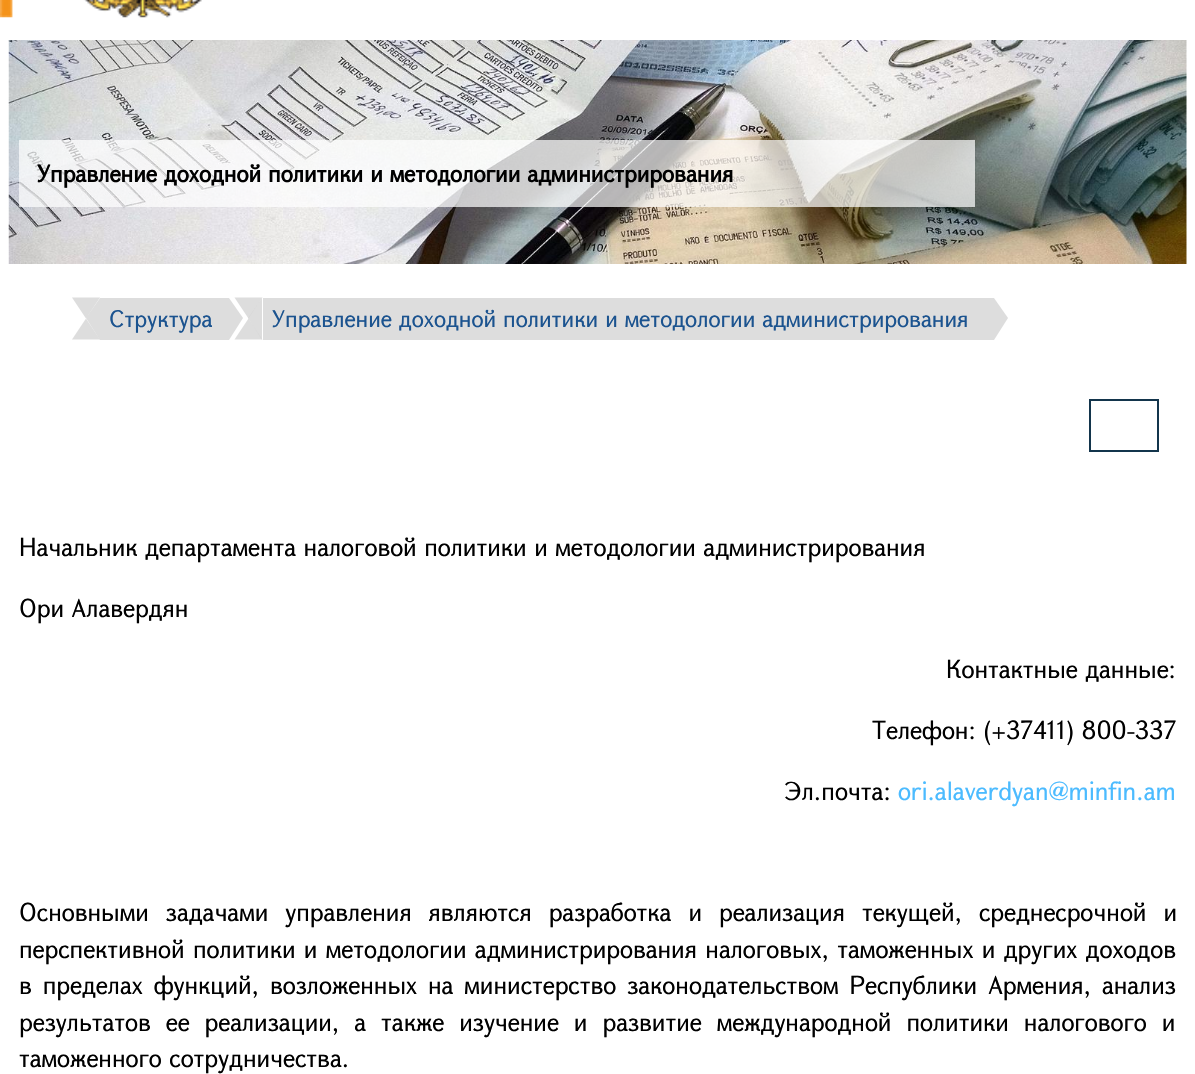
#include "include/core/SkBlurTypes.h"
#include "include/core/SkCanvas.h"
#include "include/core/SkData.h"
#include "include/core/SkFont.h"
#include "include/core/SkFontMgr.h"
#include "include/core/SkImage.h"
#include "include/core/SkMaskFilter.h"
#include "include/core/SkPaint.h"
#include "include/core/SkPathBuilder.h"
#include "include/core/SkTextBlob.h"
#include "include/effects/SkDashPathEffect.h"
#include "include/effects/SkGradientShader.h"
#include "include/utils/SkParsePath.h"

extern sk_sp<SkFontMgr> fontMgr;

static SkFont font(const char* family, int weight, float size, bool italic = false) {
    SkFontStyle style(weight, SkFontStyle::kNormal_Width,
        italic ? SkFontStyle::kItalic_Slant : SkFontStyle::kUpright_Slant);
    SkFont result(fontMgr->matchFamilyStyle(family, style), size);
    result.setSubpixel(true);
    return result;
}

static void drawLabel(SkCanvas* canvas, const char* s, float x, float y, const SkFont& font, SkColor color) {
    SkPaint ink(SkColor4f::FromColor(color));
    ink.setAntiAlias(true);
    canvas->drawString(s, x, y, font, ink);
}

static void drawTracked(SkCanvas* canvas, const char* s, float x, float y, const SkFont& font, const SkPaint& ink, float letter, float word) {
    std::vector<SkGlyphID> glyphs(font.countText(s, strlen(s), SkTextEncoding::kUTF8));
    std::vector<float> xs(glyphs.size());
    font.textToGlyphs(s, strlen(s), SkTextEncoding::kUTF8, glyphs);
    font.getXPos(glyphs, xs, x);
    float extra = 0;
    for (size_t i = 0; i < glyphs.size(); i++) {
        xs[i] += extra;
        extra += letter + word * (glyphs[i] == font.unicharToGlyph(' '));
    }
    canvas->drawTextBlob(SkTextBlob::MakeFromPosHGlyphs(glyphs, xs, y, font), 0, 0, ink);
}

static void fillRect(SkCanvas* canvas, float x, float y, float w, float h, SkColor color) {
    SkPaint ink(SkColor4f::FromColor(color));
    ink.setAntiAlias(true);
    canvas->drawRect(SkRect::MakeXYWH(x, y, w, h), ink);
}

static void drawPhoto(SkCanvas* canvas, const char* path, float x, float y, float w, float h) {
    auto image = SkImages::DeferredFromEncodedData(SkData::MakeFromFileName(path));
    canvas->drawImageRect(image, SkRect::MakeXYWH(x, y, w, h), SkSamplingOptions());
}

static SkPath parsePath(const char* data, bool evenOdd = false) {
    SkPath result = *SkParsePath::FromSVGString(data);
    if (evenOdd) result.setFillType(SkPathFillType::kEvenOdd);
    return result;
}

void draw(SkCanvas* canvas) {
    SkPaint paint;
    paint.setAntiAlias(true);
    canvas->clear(0xFFFFFFFF);
    drawPhoto(canvas, "assets/img1.png", 0, 0, 202, 18);
    drawPhoto(canvas, "assets/img2.png", 8, 40, 1179, 224);
    fillRect(canvas, 19, 140, 956, 67, 0xB3FFFFFF);
    SkFont font1 = font("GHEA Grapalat", 700, 22.75f);
    drawLabel(canvas, "Управление доходной политики и методологии администрирования", 37, 182, font1, 0xFF000000);
    paint.setStroke(true);
    paint.setStrokeWidth(2);
    paint.setColor(0xFF13354C);
    canvas->drawRect(SkRect::MakeXYWH(1090, 400, 68, 51), paint);
    SkFont font2 = font("GHEA Grapalat", 400, 24.5f);
    drawLabel(canvas, "Начальник департамента налоговой политики и методологии администрирования", 19, 556, font2, 0xFF000000);
    drawLabel(canvas, "Ори Алавердян", 19, 617, font2, 0xFF000000);
    drawLabel(canvas, "Контактные данные:", 946, 678, font2, 0xFF000000);
    drawLabel(canvas, "Телефон: (+37411) 800-337", 872, 739, font2, 0xFF000000);
    drawLabel(canvas, "Эл.почта:", 784, 800, font2, 0xFF000000);
    drawLabel(canvas, "ori.alaverdyan@minfin.am", 898, 800, font2, 0xFF4BBBFF);
    paint.setStroke(false);
    paint.setColor(0xFF000000);
    drawTracked(canvas, "Основными задачами управления являются разработка и реализация текущей, среднесрочной и", 19, 921, font2, paint, 0, 9.5f);
    drawTracked(canvas, "перспективной политики и методологии администрирования налоговых, таможенных и других доходов", 19, 958, font2, paint, 0, 0.9f);
    drawTracked(canvas, "в пределах функций, возложенных на министерство законодательством Республики Армения, анализ", 19, 994, font2, paint, 0, 3.5f);
    drawTracked(canvas, "результатов ее реализации, а также изучение и развитие международной политики налогового и", 19, 1031, font2, paint, 0, 7.5f);
    drawLabel(canvas, "таможенного сотрудничества.", 19, 1067, font2, 0xFF000000);
    fillRect(canvas, 100, 298, 129, 42, 0xFFDDDDDD);
    paint.setColor(0xFFDDDDDD);
    canvas->drawPath(parsePath("M72 297.5H100L86 318.5Z"), paint);
    paint.setColor(0xCCD4D4D4);
    canvas->drawPath(parsePath("M100 298V340L86 318Z"), paint);
    canvas->drawPath(parsePath("M100 339.5H72L86 318.5Z"), paint);
    SkFont font3 = font("GHEA Grapalat", 400, 22.75f);
    drawLabel(canvas, "Структура", 109, 327, font3, 0xFF1B538F);
    paint.setColor(0xFFDDDDDD);
    canvas->drawPath(parsePath("M229 340V298L243 318Z"), paint);
    fillRect(canvas, 263, 298, 731, 42, 0xFFDDDDDD);
    canvas->drawPath(parsePath("M234.5 297.5H262.5L248.5 318.5Z"), paint);
    paint.setColor(0xCCD4D4D4);
    canvas->drawPath(parsePath("M262 298V340L248 318Z"), paint);
    canvas->drawPath(parsePath("M262.5 339.5H234.5L248.5 318.5Z"), paint);
    drawLabel(canvas, "Управление доходной политики и методологии администрирования", 272, 327, font3, 0xFF1B538F);
    paint.setColor(0xFFDDDDDD);
    canvas->drawPath(parsePath("M994 340V298L1008 318Z"), paint);
}
